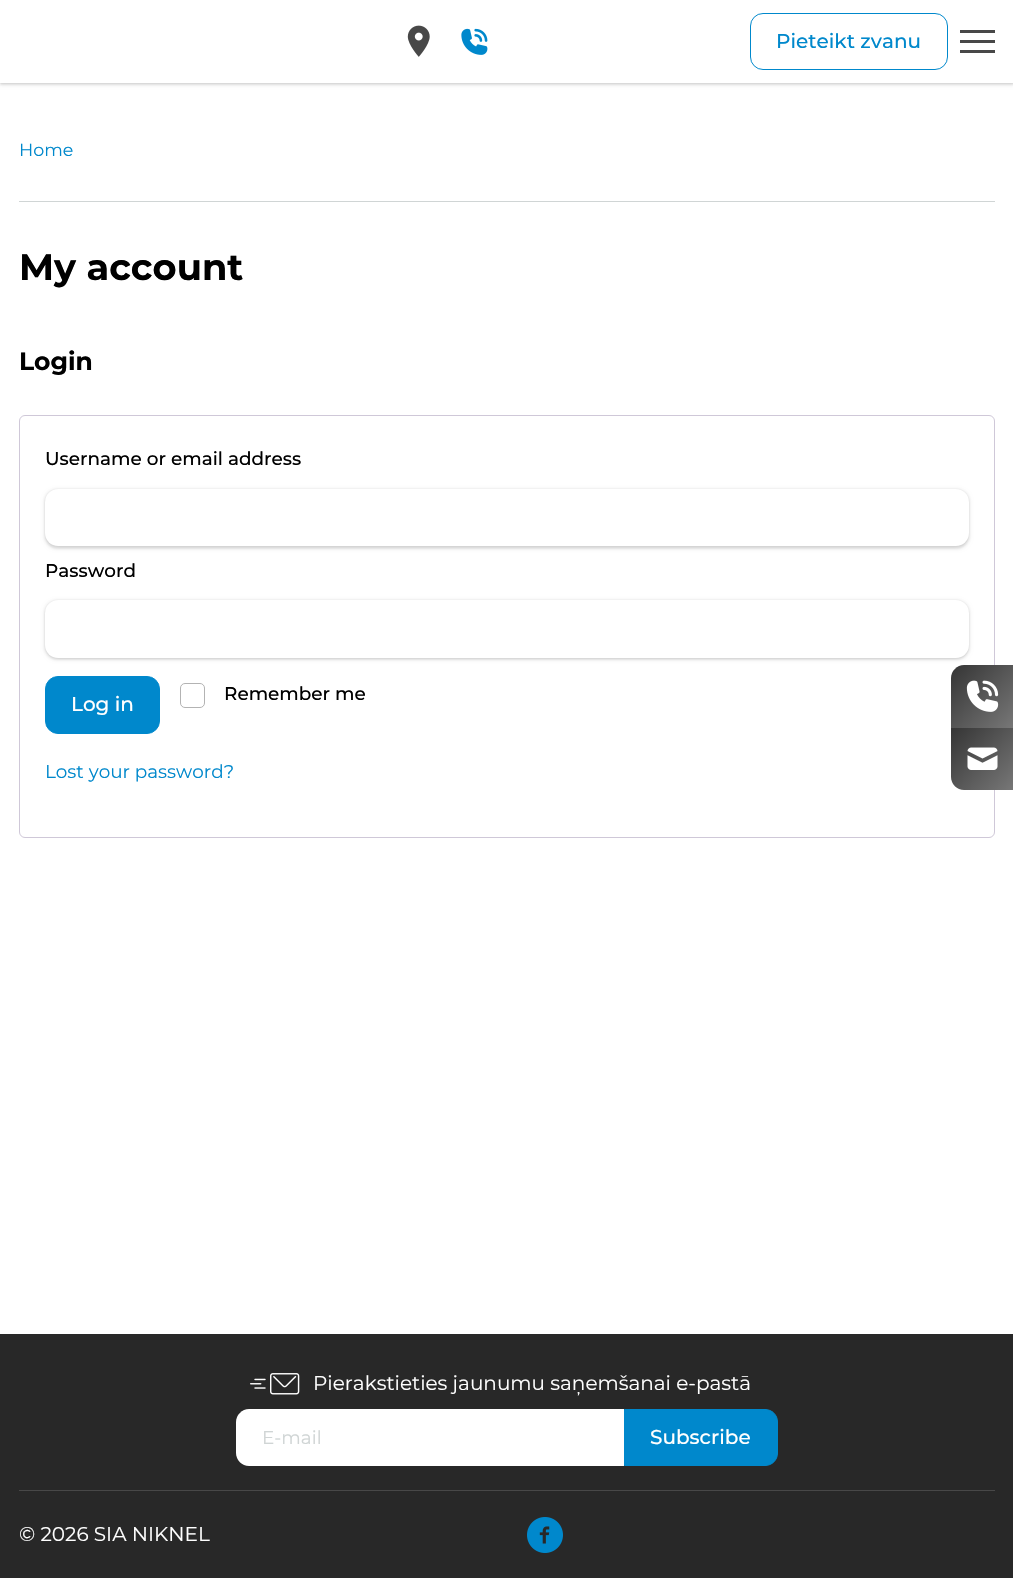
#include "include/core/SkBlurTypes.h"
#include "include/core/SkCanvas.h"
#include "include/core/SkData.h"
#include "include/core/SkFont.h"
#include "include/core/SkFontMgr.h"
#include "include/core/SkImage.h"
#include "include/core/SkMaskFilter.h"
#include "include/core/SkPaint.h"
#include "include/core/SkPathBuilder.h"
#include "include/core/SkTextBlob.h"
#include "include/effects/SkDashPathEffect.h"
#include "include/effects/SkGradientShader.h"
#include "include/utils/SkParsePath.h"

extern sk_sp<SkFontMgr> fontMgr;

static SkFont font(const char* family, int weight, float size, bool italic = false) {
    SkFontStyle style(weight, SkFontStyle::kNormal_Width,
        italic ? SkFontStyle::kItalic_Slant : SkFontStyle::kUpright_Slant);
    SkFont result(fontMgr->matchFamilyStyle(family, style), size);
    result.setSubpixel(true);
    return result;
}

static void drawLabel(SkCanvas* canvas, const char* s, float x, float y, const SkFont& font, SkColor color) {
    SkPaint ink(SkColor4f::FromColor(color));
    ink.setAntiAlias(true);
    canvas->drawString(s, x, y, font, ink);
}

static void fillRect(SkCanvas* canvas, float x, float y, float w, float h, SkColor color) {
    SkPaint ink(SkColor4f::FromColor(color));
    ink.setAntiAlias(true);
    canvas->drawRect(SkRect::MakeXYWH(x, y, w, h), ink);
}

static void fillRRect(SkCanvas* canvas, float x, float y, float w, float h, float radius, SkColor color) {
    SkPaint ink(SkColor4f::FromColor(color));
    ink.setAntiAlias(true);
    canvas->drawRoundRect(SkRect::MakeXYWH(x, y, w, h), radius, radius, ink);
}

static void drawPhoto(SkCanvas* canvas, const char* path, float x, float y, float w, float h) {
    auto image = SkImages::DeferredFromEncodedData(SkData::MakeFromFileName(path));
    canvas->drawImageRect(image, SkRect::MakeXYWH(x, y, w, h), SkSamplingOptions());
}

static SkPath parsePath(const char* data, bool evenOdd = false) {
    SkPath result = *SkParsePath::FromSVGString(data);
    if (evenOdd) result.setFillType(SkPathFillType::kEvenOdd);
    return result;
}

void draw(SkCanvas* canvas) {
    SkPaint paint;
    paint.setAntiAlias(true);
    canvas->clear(0xFFFFFFFF);
    paint.setColor(0x12000000);
    paint.setMaskFilter(SkMaskFilter::MakeBlur(kNormal_SkBlurStyle, 1));
    canvas->drawRect(SkRect::MakeXYWH(0, 0, 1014, 83), paint);
    paint.setMaskFilter(nullptr);
    paint.setColor(0x0F000000);
    paint.setMaskFilter(SkMaskFilter::MakeBlur(kNormal_SkBlurStyle, 1));
    canvas->drawRect(SkRect::MakeXYWH(0, 3, 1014, 82), paint);
    paint.setMaskFilter(nullptr);
    paint.setColor(0x1F000000);
    paint.setMaskFilter(SkMaskFilter::MakeBlur(kNormal_SkBlurStyle, 2));
    canvas->drawRect(SkRect::MakeXYWH(0, 1, 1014, 83), paint);
    paint.setMaskFilter(nullptr);
    fillRect(canvas, 0, 0, 1013, 83, 0xFFFFFFFF);
    drawPhoto(canvas, "assets/img1.png", 407, 25, 23, 32);
    drawPhoto(canvas, "assets/img2.png", 461, 28, 27, 27);
    paint.setStroke(true);
    paint.setStrokeWidth(1);
    paint.setColor(0xFF0088CC);
    canvas->drawRoundRect(SkRect::MakeXYWH(750.5f, 13.5f, 197, 56), 12.5f, 12.5f, paint);
    SkFont font1 = font("Montserrat", 500, 20);
    drawLabel(canvas, "Pieteikt zvanu", 776, 48, font1, 0xFF0088CC);
    fillRect(canvas, 960, 30, 35, 3, 0xFF484848);
    fillRect(canvas, 960, 40, 35, 3, 0xFF484848);
    fillRect(canvas, 960, 50, 35, 3, 0xFF484848);
    SkFont font2 = font("Montserrat", 400, 17.5f);
    drawLabel(canvas, "Home", 19, 156, font2, 0xFF0088CC);
    fillRect(canvas, 19, 201, 976, 1, 0xFFD0D5D5);
    SkFont font3 = font("Montserrat", 700, 36.75f);
    drawLabel(canvas, "My account", 19, 280, font3, 0xFF000000);
    SkFont font4 = font("Montserrat", 700, 25);
    drawLabel(canvas, "Login", 19, 370, font4, 0xFF000000);
    paint.setColor(0xFFCFC8D8);
    canvas->drawRoundRect(SkRect::MakeXYWH(19.5f, 415.5f, 975, 422), 5.5f, 5.5f, paint);
    SkFont font5 = font("Montserrat", 500, 18.4f);
    drawLabel(canvas, "Username or email address", 45, 465, font5, 0xFF000000);
    paint.setStroke(false);
    paint.setColor(0x12000000);
    paint.setMaskFilter(SkMaskFilter::MakeBlur(kNormal_SkBlurStyle, 1));
    canvas->drawRoundRect(SkRect::MakeXYWH(45, 489, 924, 57), 13, 13, paint);
    paint.setMaskFilter(nullptr);
    paint.setColor(0x0F000000);
    paint.setMaskFilter(SkMaskFilter::MakeBlur(kNormal_SkBlurStyle, 1));
    canvas->drawRoundRect(SkRect::MakeXYWH(45, 491, 924, 58), 13, 13, paint);
    paint.setMaskFilter(nullptr);
    paint.setColor(0x1F000000);
    paint.setMaskFilter(SkMaskFilter::MakeBlur(kNormal_SkBlurStyle, 2));
    canvas->drawRoundRect(SkRect::MakeXYWH(45, 490, 924, 58), 13, 13, paint);
    paint.setMaskFilter(nullptr);
    fillRRect(canvas, 45, 489, 924, 57, 13, 0xFFFFFFFF);
    drawLabel(canvas, "Password", 45, 577, font5, 0xFF000000);
    paint.setColor(0x12000000);
    paint.setMaskFilter(SkMaskFilter::MakeBlur(kNormal_SkBlurStyle, 1));
    canvas->drawRoundRect(SkRect::MakeXYWH(45, 600, 924, 58), 13, 13, paint);
    paint.setMaskFilter(nullptr);
    paint.setColor(0x0F000000);
    paint.setMaskFilter(SkMaskFilter::MakeBlur(kNormal_SkBlurStyle, 1));
    canvas->drawRoundRect(SkRect::MakeXYWH(45, 603, 924, 57), 13, 13, paint);
    paint.setMaskFilter(nullptr);
    paint.setColor(0x1F000000);
    paint.setMaskFilter(SkMaskFilter::MakeBlur(kNormal_SkBlurStyle, 2));
    canvas->drawRoundRect(SkRect::MakeXYWH(45, 601, 924, 58), 13, 13, paint);
    paint.setMaskFilter(nullptr);
    fillRRect(canvas, 45, 600, 924, 58, 13, 0xFFFFFFFF);
    paint.setStroke(true);
    paint.setColor(0xFFB3B3B3);
    canvas->drawRoundRect(SkRect::MakeXYWH(180.5f, 683.5f, 24, 24), 4.5f, 4.5f, paint);
    drawLabel(canvas, "Remember me", 224, 700, font5, 0xFF000000);
    paint.setStroke(false);
    paint.setColor(0xFF0088CC);
    canvas->drawRoundRect(SkRect::MakeXYWH(45.5f, 676.5f, 114, 57), 12.5f, 12.5f, paint);
    paint.setStroke(true);
    canvas->drawRoundRect(SkRect::MakeXYWH(45.5f, 676.5f, 114, 57), 12.5f, 12.5f, paint);
    drawLabel(canvas, "Log in", 71, 711, font1, 0xFFFFFFFF);
    SkFont font6 = font("Montserrat", 400, 18.4f);
    drawLabel(canvas, "Lost your password?", 45, 778, font6, 0xFF0088CC);
    fillRect(canvas, 0, 1334, 1013, 244, 0xFF282828);
    drawPhoto(canvas, "assets/img3.png", 250, 1373, 50, 22);
    SkFont font7 = font("Montserrat", 400, 20);
    drawLabel(canvas, "Pierakstieties jaunumu saņemšanai e-pastā", 313, 1390, font7, 0xFFFFFFFF);
    paint.setStroke(false);
    paint.setColor(0xFFFFFFFF);
    canvas->drawPath(parsePath("M249 1409H624V1466H249C242 1466 236 1460 236 1453V1422C236 1415 242 1409 249 1409Z"), paint);
    drawLabel(canvas, "E-mail", 262, 1444, font6, 0xFFD0D5D5);
    paint.setColor(0xFF0088CC);
    canvas->drawPath(parsePath("M624.5 1409.5H765C772 1409.5 777.5 1415 777.5 1422V1453C777.5 1460 772 1465.5 765 1465.5H624.5Z"), paint);
    paint.setStroke(true);
    canvas->drawPath(parsePath("M624.5 1409.5H765C772 1409.5 777.5 1415 777.5 1422V1453C777.5 1460 772 1465.5 765 1465.5H624.5Z"), paint);
    drawLabel(canvas, "Subscribe", 650, 1444, font1, 0xFFFFFFFF);
    fillRect(canvas, 19, 1490, 976, 1, 0xFF484848);
    drawLabel(canvas, "© 2026 SIA NIKNEL", 19, 1541, font7, 0xFFFFFFFF);
    drawPhoto(canvas, "assets/img4.png", 527, 1517, 36, 36);
    paint.setStroke(false);
    {
        const SkColor colors[] = {0xFF353535, 0xFF777777, 0xFF000000, 0xFFC9C9C9, 0xFFF8F8F8};
        const float stops[] = {0, 1, 1, 1, 1};
        const SkPoint ends[] = {{950, 667}, {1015, 726}};
        paint.setShader(SkGradientShader::MakeLinear(ends, colors, stops, 5, SkTileMode::kClamp));
        paint.setAlpha(255);
    }
    canvas->drawPath(parsePath("M964 665H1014V728H951V678C951 671 957 665 964 665Z"), paint);
    drawPhoto(canvas, "assets/img5.png", 966, 680, 33, 32);
    {
        const SkColor colors[] = {0xFF353535, 0xFF777777, 0xFF000000, 0xFFC9C9C9, 0xFFF8F8F8};
        const float stops[] = {0, 1, 1, 1, 1};
        const SkPoint ends[] = {{950, 729}, {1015, 788}};
        paint.setShader(SkGradientShader::MakeLinear(ends, colors, stops, 5, SkTileMode::kClamp));
        paint.setAlpha(255);
    }
    canvas->drawPath(parsePath("M951 728H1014V790H964C957 790 951 784 951 777Z"), paint);
    drawPhoto(canvas, "assets/img6.png", 967, 747, 31, 23);
}
